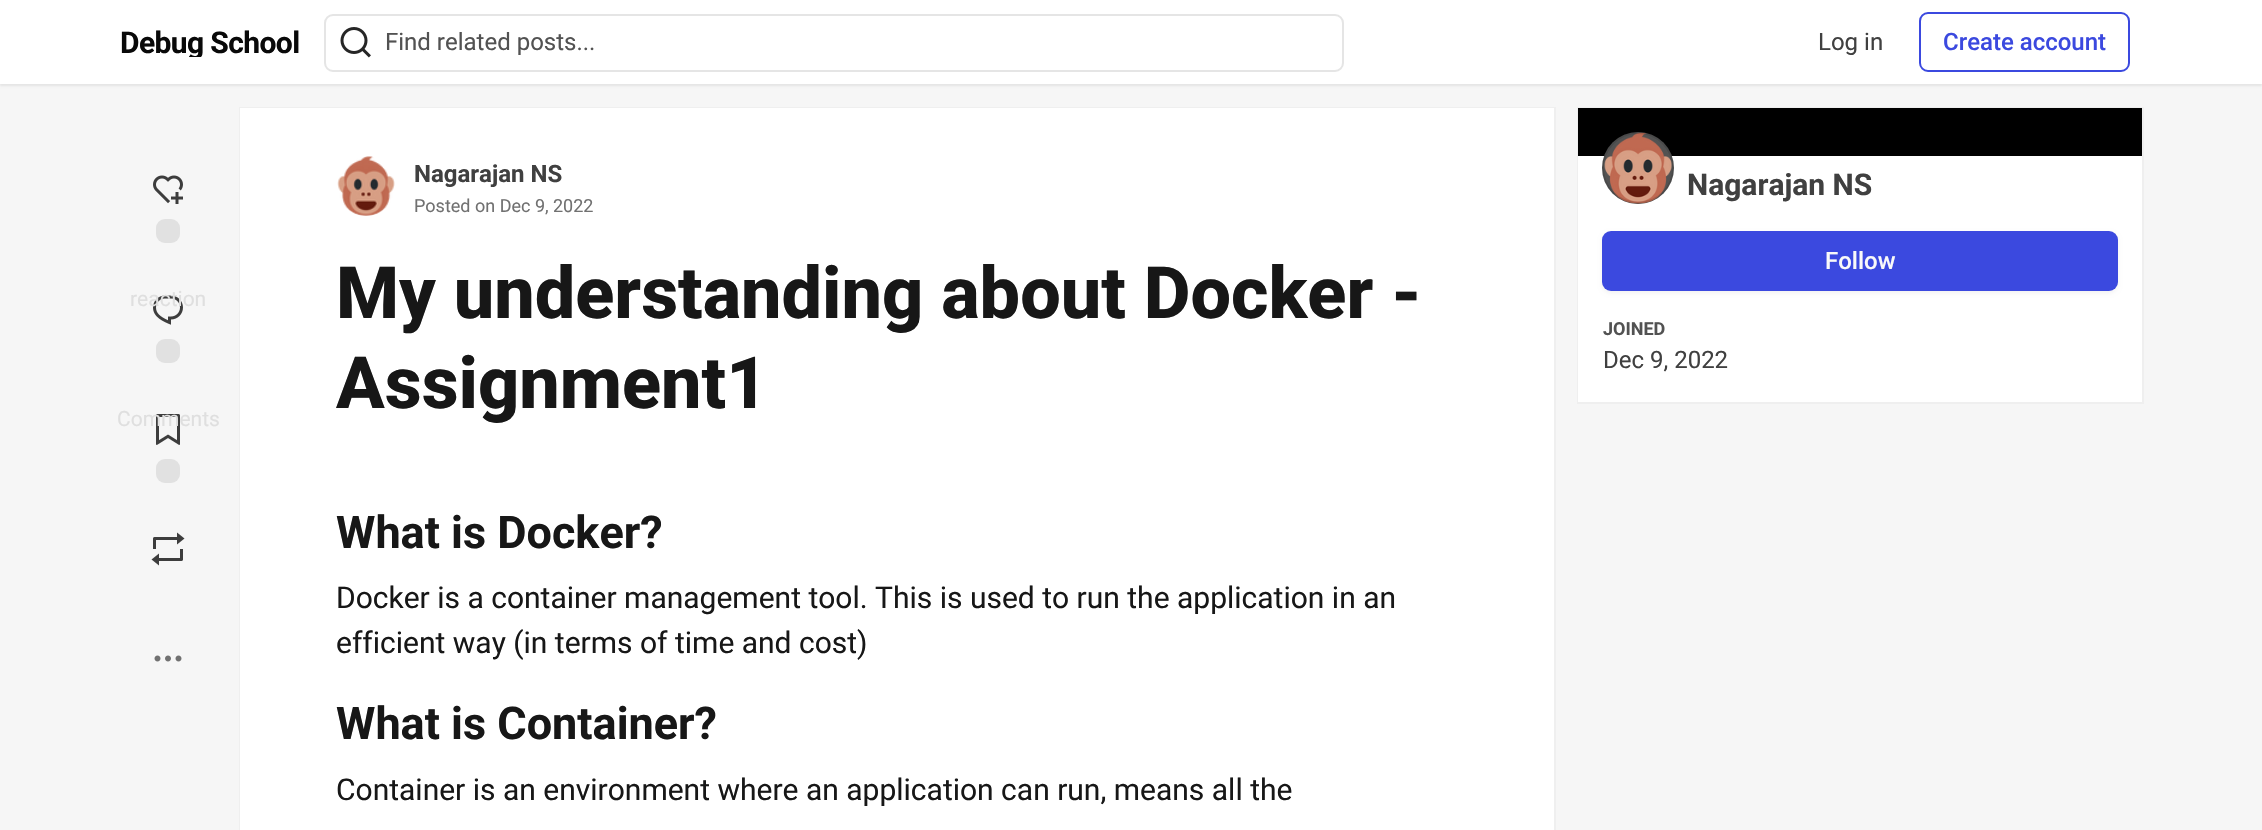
#include "include/core/SkBlurTypes.h"
#include "include/core/SkCanvas.h"
#include "include/core/SkData.h"
#include "include/core/SkFont.h"
#include "include/core/SkFontMgr.h"
#include "include/core/SkImage.h"
#include "include/core/SkMaskFilter.h"
#include "include/core/SkPaint.h"
#include "include/core/SkPathBuilder.h"
#include "include/core/SkTextBlob.h"
#include "include/effects/SkDashPathEffect.h"
#include "include/effects/SkGradientShader.h"
#include "include/utils/SkParsePath.h"

extern sk_sp<SkFontMgr> fontMgr;

static SkFont font(const char* family, int weight, float size, bool italic = false) {
    SkFontStyle style(weight, SkFontStyle::kNormal_Width,
        italic ? SkFontStyle::kItalic_Slant : SkFontStyle::kUpright_Slant);
    SkFont result(fontMgr->matchFamilyStyle(family, style), size);
    result.setSubpixel(true);
    return result;
}

static void drawLabel(SkCanvas* canvas, const char* s, float x, float y, const SkFont& font, SkColor color) {
    SkPaint ink(SkColor4f::FromColor(color));
    ink.setAntiAlias(true);
    canvas->drawString(s, x, y, font, ink);
}

static void drawTracked(SkCanvas* canvas, const char* s, float x, float y, const SkFont& font, const SkPaint& ink, float letter, float word) {
    std::vector<SkGlyphID> glyphs(font.countText(s, strlen(s), SkTextEncoding::kUTF8));
    std::vector<float> xs(glyphs.size());
    font.textToGlyphs(s, strlen(s), SkTextEncoding::kUTF8, glyphs);
    font.getXPos(glyphs, xs, x);
    float extra = 0;
    for (size_t i = 0; i < glyphs.size(); i++) {
        xs[i] += extra;
        extra += letter + word * (glyphs[i] == font.unicharToGlyph(' '));
    }
    canvas->drawTextBlob(SkTextBlob::MakeFromPosHGlyphs(glyphs, xs, y, font), 0, 0, ink);
}

static void fillRect(SkCanvas* canvas, float x, float y, float w, float h, SkColor color) {
    SkPaint ink(SkColor4f::FromColor(color));
    ink.setAntiAlias(true);
    canvas->drawRect(SkRect::MakeXYWH(x, y, w, h), ink);
}

static void fillRRect(SkCanvas* canvas, float x, float y, float w, float h, float radius, SkColor color) {
    SkPaint ink(SkColor4f::FromColor(color));
    ink.setAntiAlias(true);
    canvas->drawRoundRect(SkRect::MakeXYWH(x, y, w, h), radius, radius, ink);
}

static void drawPhoto(SkCanvas* canvas, const char* path, float x, float y, float w, float h) {
    auto image = SkImages::DeferredFromEncodedData(SkData::MakeFromFileName(path));
    canvas->drawImageRect(image, SkRect::MakeXYWH(x, y, w, h), SkSamplingOptions());
}

void draw(SkCanvas* canvas) {
    SkPaint paint;
    paint.setAntiAlias(true);
    canvas->clear(0xFFF6F6F6);
    paint.setColor(0x12000000);
    paint.setMaskFilter(SkMaskFilter::MakeBlur(kNormal_SkBlurStyle, 1));
    canvas->drawRect(SkRect::MakeXYWH(0, 2, 2262, 84), paint);
    paint.setMaskFilter(nullptr);
    fillRect(canvas, 0, 0, 2262, 84, 0xFFFFFFFF);
    canvas->save();
    canvas->clipRect(SkRect::MakeXYWH(120, 27, 180, 30));
    SkFont font1 = font("Roboto", 700, 30);
    paint.setColor(0xFF090909);
    drawTracked(canvas, "Debug School", 120, 53, font1, paint, -0.6f, 0);
    canvas->restore();
    paint.setStroke(true);
    paint.setStrokeWidth(2);
    paint.setColor(0xFFE5E5E5);
    canvas->drawRoundRect(SkRect::MakeXYWH(325, 15, 1018, 56), 8, 8, paint);
    drawPhoto(canvas, "assets/img1.png", 340, 27, 31, 31);
    SkFont font2 = font("Roboto", 400, 24);
    drawLabel(canvas, "Find related posts...", 385, 50, font2, 0xFF525252);
    drawLabel(canvas, "Log in", 1818, 50, font2, 0xFF404040);
    paint.setColor(0xFF3B49DF);
    canvas->drawRoundRect(SkRect::MakeXYWH(1920, 13, 209, 58), 8, 8, paint);
    SkFont font3 = font("Roboto", 500, 24);
    drawLabel(canvas, "Create account", 1943, 50, font3, 0xFF3B49DF);
    drawPhoto(canvas, "assets/img2.png", 153, 175, 30, 29);
    fillRRect(canvas, 156, 219, 24, 24, 9, 0xFFE1E1E1);
    drawPhoto(canvas, "assets/img3.png", 153, 295, 30, 30);
    SkFont font4 = font("Roboto", 400, 21);
    drawLabel(canvas, "reaction", 130, 306, font4, 0xFFDFDFDF);
    fillRRect(canvas, 156, 339, 24, 24, 9, 0xFFE1E1E1);
    drawPhoto(canvas, "assets/img4.png", 156, 414, 24, 31);
    drawLabel(canvas, "Comments", 117, 426, font4, 0xFFDFDFDF);
    fillRRect(canvas, 156, 459, 24, 24, 9, 0xFFE1E1E1);
    drawPhoto(canvas, "assets/img5.png", 151, 532, 34, 34);
    drawPhoto(canvas, "assets/img6.png", 154, 655, 28, 7);
    paint.setColor(0xFFEFEFEF);
    canvas->drawRect(SkRect::MakeXYWH(240, 108, 1315, 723), paint);
    fillRect(canvas, 240, 108, 1314, 722, 0xFFFFFFFF);
    drawPhoto(canvas, "assets/img7.png", 337, 156, 58, 60);
    SkFont font5 = font("Roboto", 700, 24);
    drawLabel(canvas, "Nagarajan NS", 414, 182, font5, 0xFF404040);
    SkFont font6 = font("Roboto", 400, 18);
    drawLabel(canvas, "Posted on Dec 9, 2022", 414, 212, font6, 0xFF717171);
    SkFont font7 = font("Roboto", 800, 72);
    drawLabel(canvas, "My understanding about Docker -", 336, 318, font7, 0xFF171717);
    drawLabel(canvas, "Assignment1", 336, 408, font7, 0xFF171717);
    SkFont font8 = font("Roboto", 700, 45);
    drawLabel(canvas, "What is Docker?", 336, 548, font8, 0xFF171717);
    SkFont font9 = font("Roboto", 400, 30);
    drawLabel(canvas, "Docker is a container management tool. This is used to run the application in an", 336, 608, font9, 0xFF171717);
    drawLabel(canvas, "efficient way (in terms of time and cost)", 336, 653, font9, 0xFF171717);
    drawLabel(canvas, "What is Container?", 336, 739, font8, 0xFF171717);
    drawLabel(canvas, "Container is an environment where an application can run, means all the", 336, 800, font9, 0xFF171717);
    canvas->drawRect(SkRect::MakeXYWH(1578, 108, 565, 295), paint);
    fillRect(canvas, 1578, 156, 564, 246, 0xFFFFFFFF);
    fillRect(canvas, 1578, 108, 564, 48, 0xFF000000);
    paint.setStroke(false);
    paint.setColor(0xFF525252);
    canvas->drawCircle(1638, 168, 36, paint);
    drawPhoto(canvas, "assets/img8.png", 1604, 132, 68, 72);
    paint.setStroke(true);
    paint.setColor(0x26171717);
    canvas->drawCircle(1638, 168, 35, paint);
    drawLabel(canvas, "Nagarajan NS", 1687, 195, font1, 0xFF404040);
    paint.setStroke(false);
    paint.setColor(0x0D000000);
    paint.setMaskFilter(SkMaskFilter::MakeBlur(kNormal_SkBlurStyle, 2));
    canvas->drawRoundRect(SkRect::MakeXYWH(1602, 233, 516, 60), 9, 9, paint);
    paint.setMaskFilter(nullptr);
    fillRRect(canvas, 1602, 231, 516, 60, 9, 0xFF3B49DF);
    drawLabel(canvas, "Follow", 1825, 269, font3, 0xFFF9F9F9);
    SkFont font10 = font("Roboto", 700, 18);
    drawLabel(canvas, "JOINED", 1603, 335, font10, 0xFF525252);
    drawLabel(canvas, "Dec 9, 2022", 1603, 368, font2, 0xFF404040);
}
